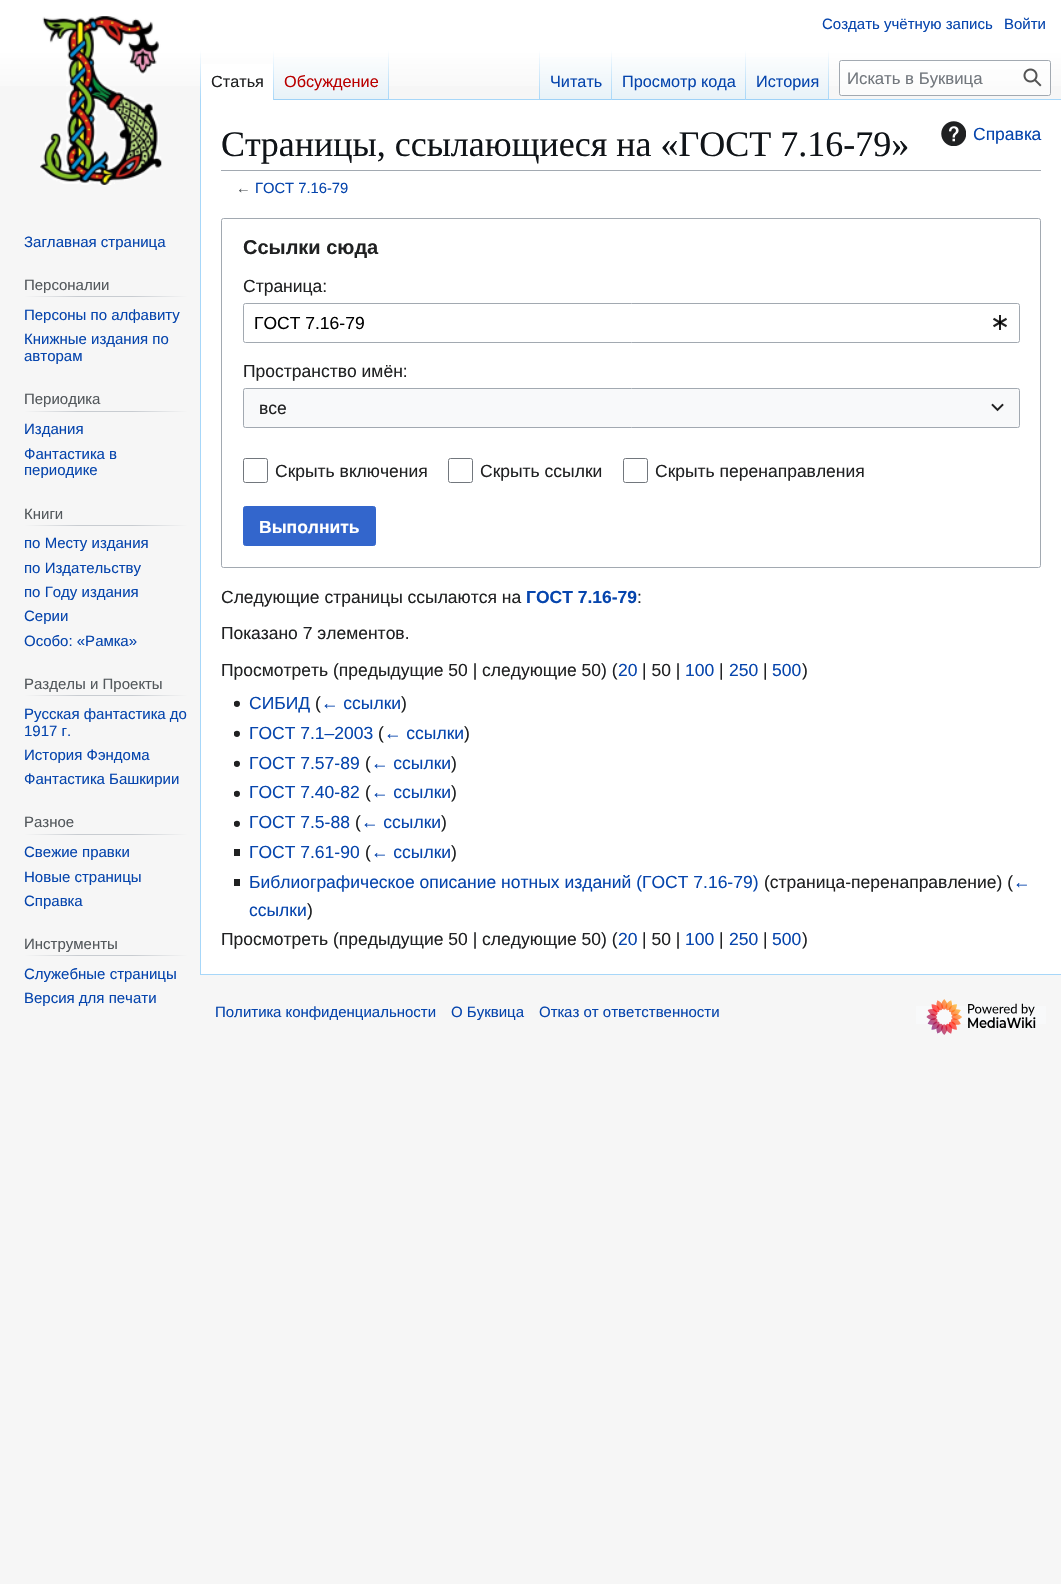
#include "include/core/SkBlurTypes.h"
#include "include/core/SkCanvas.h"
#include "include/core/SkData.h"
#include "include/core/SkFont.h"
#include "include/core/SkFontMgr.h"
#include "include/core/SkImage.h"
#include "include/core/SkMaskFilter.h"
#include "include/core/SkPaint.h"
#include "include/core/SkPathBuilder.h"
#include "include/core/SkTextBlob.h"
#include "include/effects/SkDashPathEffect.h"
#include "include/effects/SkGradientShader.h"
#include "include/utils/SkParsePath.h"

extern sk_sp<SkFontMgr> fontMgr;

static SkFont font(const char* family, int weight, float size, bool italic = false) {
    SkFontStyle style(weight, SkFontStyle::kNormal_Width,
        italic ? SkFontStyle::kItalic_Slant : SkFontStyle::kUpright_Slant);
    SkFont result(fontMgr->matchFamilyStyle(family, style), size);
    result.setSubpixel(true);
    return result;
}

static void drawLabel(SkCanvas* canvas, const char* s, float x, float y, const SkFont& font, SkColor color) {
    SkPaint ink(SkColor4f::FromColor(color));
    ink.setAntiAlias(true);
    canvas->drawString(s, x, y, font, ink);
}

static void fillRect(SkCanvas* canvas, float x, float y, float w, float h, SkColor color) {
    SkPaint ink(SkColor4f::FromColor(color));
    ink.setAntiAlias(true);
    canvas->drawRect(SkRect::MakeXYWH(x, y, w, h), ink);
}

static void drawPhoto(SkCanvas* canvas, const char* path, float x, float y, float w, float h) {
    auto image = SkImages::DeferredFromEncodedData(SkData::MakeFromFileName(path));
    canvas->drawImageRect(image, SkRect::MakeXYWH(x, y, w, h), SkSamplingOptions());
}

void draw(SkCanvas* canvas) {
    SkPaint paint;
    paint.setAntiAlias(true);
    canvas->clear(0xFFF6F6F6);
    {
        const SkColor colors[] = {0xFFFFFFFF, 0xFFF6F6F6};
        const float stops[] = {0.5f, 1};
        const SkPoint ends[] = {{531, 0}, {531, 100}};
        paint.setShader(SkGradientShader::MakeLinear(ends, colors, stops, 2, SkTileMode::kClamp));
        paint.setAlpha(255);
    }
    canvas->drawRect(SkRect::MakeXYWH(0, 0, 1061, 86), paint);
    SkFont font1 = font("Liberation Sans", 400, 15);
    drawLabel(canvas, "Создать учётную запись", 822, 29, font1, 0xFF0645AD);
    drawLabel(canvas, "Войти", 1004, 29, font1, 0xFF0645AD);
    fillRect(canvas, 200, 974, 861, 1, 0xFFA7D7F9);
    fillRect(canvas, 200, 99, 1, 876, 0xFFA7D7F9);
    {
        const SkColor colors[] = {0x00A7D7F9, 0xFFA7D7F9};
        const float stops[] = {0, 1};
        const SkPoint ends[] = {{201, 50}, {201, 100}};
        paint.setShader(SkGradientShader::MakeLinear(ends, colors, stops, 2, SkTileMode::kClamp));
        paint.setAlpha(255);
    }
    canvas->drawRect(SkRect::MakeXYWH(200, 50, 1, 50), paint);
    fillRect(canvas, 201, 64, 72, 36, 0xFFFFFFFF);
    {
        const SkColor colors[] = {0xFFFFFFFF, 0xFFA7D7F9};
        const float stops[] = {0, 1};
        const SkPoint ends[] = {{273, 50}, {273, 100}};
        paint.setShader(SkGradientShader::MakeLinear(ends, colors, stops, 2, SkTileMode::kClamp));
        paint.setAlpha(255);
    }
    canvas->drawRect(SkRect::MakeXYWH(273, 50, 1, 50), paint);
    SkFont font2 = font("Liberation Sans", 400, 16.25f);
    drawLabel(canvas, "Статья", 211, 87, font2, 0xFF202122);
    {
        const SkColor colors[] = {0xFF77C1F6, 0xFFE8F2F8, 0xFFFFFFFF};
        const float stops[] = {0, 0.03f, 1};
        const SkPoint ends[] = {{331, 100}, {331, 50}};
        paint.setShader(SkGradientShader::MakeLinear(ends, colors, stops, 3, SkTileMode::kClamp));
        paint.setAlpha(255);
    }
    canvas->drawRect(SkRect::MakeXYWH(274, 57, 115, 43), paint);
    {
        const SkColor colors[] = {0x00A7D7F9, 0xFFA7D7F9};
        const float stops[] = {0, 1};
        const SkPoint ends[] = {{388, 50}, {388, 100}};
        paint.setShader(SkGradientShader::MakeLinear(ends, colors, stops, 2, SkTileMode::kClamp));
        paint.setAlpha(255);
    }
    canvas->drawRect(SkRect::MakeXYWH(388, 50, 1, 50), paint);
    drawLabel(canvas, "Обсуждение", 284, 87, font2, 0xFFBA0000);
    fillRect(canvas, 389, 99, 672, 1, 0xFFA7D7F9);
    {
        const SkColor colors[] = {0x00A7D7F9, 0xFFA7D7F9};
        const float stops[] = {0, 1};
        const SkPoint ends[] = {{539, 50}, {539, 100}};
        paint.setShader(SkGradientShader::MakeLinear(ends, colors, stops, 2, SkTileMode::kClamp));
        paint.setAlpha(255);
    }
    canvas->drawRect(SkRect::MakeXYWH(539, 50, 1, 50), paint);
    {
        const SkColor colors[] = {0xFF77C1F6, 0xFFE8F2F8, 0xFFFFFFFF};
        const float stops[] = {0, 0.03f, 1};
        const SkPoint ends[] = {{576, 100}, {576, 50}};
        paint.setShader(SkGradientShader::MakeLinear(ends, colors, stops, 3, SkTileMode::kClamp));
        paint.setAlpha(255);
    }
    canvas->drawRect(SkRect::MakeXYWH(540, 57, 73, 43), paint);
    {
        const SkColor colors[] = {0x00A7D7F9, 0xFFA7D7F9};
        const float stops[] = {0, 1};
        const SkPoint ends[] = {{612, 50}, {612, 100}};
        paint.setShader(SkGradientShader::MakeLinear(ends, colors, stops, 2, SkTileMode::kClamp));
        paint.setAlpha(255);
    }
    canvas->drawRect(SkRect::MakeXYWH(611, 50, 1, 50), paint);
    drawLabel(canvas, "Читать", 550, 87, font2, 0xFF0645AD);
    {
        const SkColor colors[] = {0xFF77C1F6, 0xFFE8F2F8, 0xFFFFFFFF};
        const float stops[] = {0, 0.03f, 1};
        const SkPoint ends[] = {{679, 100}, {679, 50}};
        paint.setShader(SkGradientShader::MakeLinear(ends, colors, stops, 3, SkTileMode::kClamp));
        paint.setAlpha(255);
    }
    canvas->drawRect(SkRect::MakeXYWH(613, 57, 133, 43), paint);
    {
        const SkColor colors[] = {0x00A7D7F9, 0xFFA7D7F9};
        const float stops[] = {0, 1};
        const SkPoint ends[] = {{746, 50}, {746, 100}};
        paint.setShader(SkGradientShader::MakeLinear(ends, colors, stops, 2, SkTileMode::kClamp));
        paint.setAlpha(255);
    }
    canvas->drawRect(SkRect::MakeXYWH(745, 50, 1, 50), paint);
    drawLabel(canvas, "Просмотр кода", 622, 87, font2, 0xFF0645AD);
    {
        const SkColor colors[] = {0xFF77C1F6, 0xFFE8F2F8, 0xFFFFFFFF};
        const float stops[] = {0, 0.03f, 1};
        const SkPoint ends[] = {{788, 100}, {788, 50}};
        paint.setShader(SkGradientShader::MakeLinear(ends, colors, stops, 3, SkTileMode::kClamp));
        paint.setAlpha(255);
    }
    canvas->drawRect(SkRect::MakeXYWH(746, 57, 83, 43), paint);
    {
        const SkColor colors[] = {0x00A7D7F9, 0xFFA7D7F9};
        const float stops[] = {0, 1};
        const SkPoint ends[] = {{828, 50}, {828, 100}};
        paint.setShader(SkGradientShader::MakeLinear(ends, colors, stops, 2, SkTileMode::kClamp));
        paint.setAlpha(255);
    }
    canvas->drawRect(SkRect::MakeXYWH(828, 50, 1, 50), paint);
    drawLabel(canvas, "История", 756, 87, font2, 0xFF0645AD);
    paint.setShader(nullptr);
    paint.setColor(0x80FFFFFF);
    canvas->drawRoundRect(SkRect::MakeXYWH(839.5f, 60.5f, 211, 35), 2, 2, paint);
    paint.setStroke(true);
    paint.setStrokeWidth(1);
    paint.setColor(0xFFA2A9B1);
    canvas->drawRoundRect(SkRect::MakeXYWH(839.5f, 60.5f, 211, 35), 2, 2, paint);
    SkFont font3 = font("Liberation Sans", 400, 16.75f);
    drawLabel(canvas, "Искать в Буквица", 847, 84, font3, 0xFF72777D);
    drawPhoto(canvas, "assets/img1.png", 1023, 68, 19, 19);
    drawPhoto(canvas, "assets/img2.png", 40, 16, 122, 169);
    drawLabel(canvas, "Заглавная страница", 24, 247, font1, 0xFF0645AD);
    paint.setStroke(false);
    {
        const SkColor colors[] = {0xFFF6F6F6, 0xFFC8CCD1, 0xFFC8CCD1, 0xFFF6F6F6};
        const float stops[] = {0, 0.33f, 0.66f, 1};
        const SkPoint ends[] = {{24, 297}, {188, 297}};
        paint.setShader(SkGradientShader::MakeLinear(ends, colors, stops, 4, SkTileMode::kClamp));
        paint.setAlpha(255);
    }
    canvas->drawRect(SkRect::MakeXYWH(24, 296, 164, 1), paint);
    drawLabel(canvas, "Персоналии", 24, 290, font1, 0xFF54595D);
    drawLabel(canvas, "Персоны по алфавиту", 24, 320, font1, 0xFF0645AD);
    drawLabel(canvas, "Книжные издания по", 24, 344, font1, 0xFF0645AD);
    drawLabel(canvas, "авторам", 24, 361, font1, 0xFF0645AD);
    {
        const SkColor colors[] = {0xFFF6F6F6, 0xFFC8CCD1, 0xFFC8CCD1, 0xFFF6F6F6};
        const float stops[] = {0, 0.33f, 0.66f, 1};
        const SkPoint ends[] = {{24, 412}, {188, 412}};
        paint.setShader(SkGradientShader::MakeLinear(ends, colors, stops, 4, SkTileMode::kClamp));
        paint.setAlpha(255);
    }
    canvas->drawRect(SkRect::MakeXYWH(24, 411, 164, 1), paint);
    drawLabel(canvas, "Периодика", 24, 404, font1, 0xFF54595D);
    drawLabel(canvas, "Издания", 24, 434, font1, 0xFF0645AD);
    drawLabel(canvas, "Фантастика в", 24, 459, font1, 0xFF0645AD);
    drawLabel(canvas, "периодике", 24, 475, font1, 0xFF0645AD);
    {
        const SkColor colors[] = {0xFFF6F6F6, 0xFFC8CCD1, 0xFFC8CCD1, 0xFFF6F6F6};
        const float stops[] = {0, 0.33f, 0.66f, 1};
        const SkPoint ends[] = {{24, 526}, {188, 526}};
        paint.setShader(SkGradientShader::MakeLinear(ends, colors, stops, 4, SkTileMode::kClamp));
        paint.setAlpha(255);
    }
    canvas->drawRect(SkRect::MakeXYWH(24, 525, 164, 1), paint);
    drawLabel(canvas, "Книги", 24, 519, font1, 0xFF54595D);
    drawLabel(canvas, "по Месту издания", 24, 548, font1, 0xFF0645AD);
    drawLabel(canvas, "по Издательству", 24, 573, font1, 0xFF0645AD);
    drawLabel(canvas, "по Году издания", 24, 597, font1, 0xFF0645AD);
    drawLabel(canvas, "Серии", 24, 621, font1, 0xFF0645AD);
    drawLabel(canvas, "Особо: «Рамка»", 24, 646, font1, 0xFF0645AD);
    {
        const SkColor colors[] = {0xFFF6F6F6, 0xFFC8CCD1, 0xFFC8CCD1, 0xFFF6F6F6};
        const float stops[] = {0, 0.33f, 0.66f, 1};
        const SkPoint ends[] = {{24, 696}, {188, 696}};
        paint.setShader(SkGradientShader::MakeLinear(ends, colors, stops, 4, SkTileMode::kClamp));
        paint.setAlpha(255);
    }
    canvas->drawRect(SkRect::MakeXYWH(24, 695, 164, 1), paint);
    drawLabel(canvas, "Разделы и Проекты", 24, 689, font1, 0xFF54595D);
    drawLabel(canvas, "Русская фантастика до", 24, 719, font1, 0xFF0645AD);
    drawLabel(canvas, "1917 г.", 24, 736, font1, 0xFF0645AD);
    drawLabel(canvas, "История Фэндома", 24, 760, font1, 0xFF0645AD);
    drawLabel(canvas, "Фантастика Башкирии", 24, 784, font1, 0xFF0645AD);
    {
        const SkColor colors[] = {0xFFF6F6F6, 0xFFC8CCD1, 0xFFC8CCD1, 0xFFF6F6F6};
        const float stops[] = {0, 0.33f, 0.66f, 1};
        const SkPoint ends[] = {{24, 834}, {188, 834}};
        paint.setShader(SkGradientShader::MakeLinear(ends, colors, stops, 4, SkTileMode::kClamp));
        paint.setAlpha(255);
    }
    canvas->drawRect(SkRect::MakeXYWH(24, 834, 164, 1), paint);
    drawLabel(canvas, "Разное", 24, 827, font1, 0xFF54595D);
    drawLabel(canvas, "Свежие правки", 24, 857, font1, 0xFF0645AD);
    drawLabel(canvas, "Новые страницы", 24, 882, font1, 0xFF0645AD);
    drawLabel(canvas, "Справка", 24, 906, font1, 0xFF0645AD);
    {
        const SkColor colors[] = {0xFFF6F6F6, 0xFFC8CCD1, 0xFFC8CCD1, 0xFFF6F6F6};
        const float stops[] = {0, 0.33f, 0.66f, 1};
        const SkPoint ends[] = {{24, 956}, {188, 956}};
        paint.setShader(SkGradientShader::MakeLinear(ends, colors, stops, 4, SkTileMode::kClamp));
        paint.setAlpha(255);
    }
    canvas->drawRect(SkRect::MakeXYWH(24, 955, 164, 1), paint);
    drawLabel(canvas, "Инструменты", 24, 949, font1, 0xFF54595D);
    drawLabel(canvas, "Служебные страницы", 24, 979, font1, 0xFF0645AD);
    drawLabel(canvas, "Версия для печати", 24, 1003, font1, 0xFF0645AD);
    fillRect(canvas, 201, 100, 860, 874, 0xFFFFFFFF);
    fillRect(canvas, 221, 170, 820, 1, 0xFFA2A9B1);
    SkFont font4 = font("Liberation Serif", 400, 36);
    drawLabel(canvas, "Страницы, ссылающиеся на «ГОСТ 7.16-79»", 221, 156, font4, 0xFF101418);
    drawPhoto(canvas, "assets/img3.png", 941, 121, 25, 25);
    SkFont font5 = font("Liberation Sans", 400, 17.5f);
    drawLabel(canvas, "Справка", 973, 140, font5, 0xFF0645AD);
    SkFont font6 = font("Liberation Sans", 400, 14.75f);
    drawLabel(canvas, "←", 236, 193, font6, 0xFF54595D);
    drawLabel(canvas, "ГОСТ 7.16-79", 255, 193, font6, 0xFF0645AD);
    paint.setStroke(true);
    paint.setShader(nullptr);
    paint.setColor(0xFFA2A9B1);
    canvas->drawRoundRect(SkRect::MakeXYWH(221.5f, 218.5f, 819, 349), 2, 2, paint);
    SkFont font7 = font("Liberation Sans", 700, 20);
    drawLabel(canvas, "Ссылки сюда", 243, 254, font7, 0xFF202122);
    drawLabel(canvas, "Страница:", 243, 292, font5, 0xFF202122);
    canvas->drawRoundRect(SkRect::MakeXYWH(243.5f, 303.5f, 776, 39), 2, 2, paint);
    drawLabel(canvas, "ГОСТ 7.16-79", 254, 329, font5, 0xFF000000);
    drawPhoto(canvas, "assets/img4.png", 993, 315, 14, 15);
    drawLabel(canvas, "Пространство имён:", 243, 377, font5, 0xFF202122);
    fillRect(canvas, 243, 388, 777, 40, 0xFFF8F9FA);
    canvas->drawRoundRect(SkRect::MakeXYWH(243.5f, 388.5f, 776, 39), 2, 2, paint);
    drawLabel(canvas, "все", 259, 414, font5, 0xFF202122);
    drawPhoto(canvas, "assets/img5.png", 991, 403, 13, 9);
    paint.setColor(0xFF72777D);
    canvas->drawRoundRect(SkRect::MakeXYWH(243.5f, 458.5f, 24, 24), 2, 2, paint);
    drawLabel(canvas, "Скрыть включения", 275, 477, font5, 0xFF202122);
    canvas->drawRoundRect(SkRect::MakeXYWH(448.5f, 458.5f, 24, 24), 2, 2, paint);
    drawLabel(canvas, "Скрыть ссылки", 480, 477, font5, 0xFF202122);
    canvas->drawRoundRect(SkRect::MakeXYWH(623.5f, 458.5f, 24, 24), 2, 2, paint);
    drawLabel(canvas, "Скрыть перенаправления", 655, 477, font5, 0xFF202122);
    paint.setStroke(false);
    paint.setColor(0xFF3366CC);
    canvas->drawRoundRect(SkRect::MakeXYWH(243.5f, 506.5f, 132, 39), 2, 2, paint);
    paint.setStroke(true);
    canvas->drawRoundRect(SkRect::MakeXYWH(243.5f, 506.5f, 132, 39), 2, 2, paint);
    SkFont font8 = font("Liberation Sans", 700, 17.5f);
    drawLabel(canvas, "Выполнить", 259, 533, font8, 0xFFFFFFFF);
    drawLabel(canvas, "Следующие страницы ссылаются на", 221, 603, font5, 0xFF202122);
    drawLabel(canvas, "ГОСТ 7.16-79", 526, 603, font8, 0xFF0645AD);
    drawLabel(canvas, ":", 637, 603, font5, 0xFF202122);
    drawLabel(canvas, "Показано 7 элементов.", 221, 639, font5, 0xFF202122);
    drawLabel(canvas, "Просмотреть (предыдущие 50 | следующие 50) (", 221, 676, font5, 0xFF202122);
    drawLabel(canvas, "20", 618, 676, font5, 0xFF0645AD);
    drawLabel(canvas, "| 50 |", 642, 676, font5, 0xFF202122);
    drawLabel(canvas, "100", 685, 676, font5, 0xFF0645AD);
    drawLabel(canvas, "|", 719, 676, font5, 0xFF202122);
    drawLabel(canvas, "250", 729, 676, font5, 0xFF0645AD);
    drawLabel(canvas, "|", 763, 676, font5, 0xFF202122);
    drawLabel(canvas, "500", 772, 676, font5, 0xFF0645AD);
    drawLabel(canvas, ")", 802, 676, font5, 0xFF202122);
    drawPhoto(canvas, "assets/img6.png", 234, 700, 6, 7);
    drawLabel(canvas, "СИБИД", 249, 709, font5, 0xFF0645AD);
    drawLabel(canvas, "(", 315, 709, font5, 0xFF202122);
    drawLabel(canvas, "← ссылки", 321, 709, font5, 0xFF0645AD);
    drawLabel(canvas, ")", 401, 709, font5, 0xFF202122);
    drawPhoto(canvas, "assets/img6.png", 234, 730, 6, 7);
    drawLabel(canvas, "ГОСТ 7.1–2003", 249, 739, font5, 0xFF0645AD);
    drawLabel(canvas, "(", 378, 739, font5, 0xFF202122);
    drawLabel(canvas, "← ссылки", 384, 739, font5, 0xFF0645AD);
    drawLabel(canvas, ")", 464, 739, font5, 0xFF202122);
    drawPhoto(canvas, "assets/img7.png", 234, 760, 6, 7);
    drawLabel(canvas, "ГОСТ 7.57-89", 249, 769, font5, 0xFF0645AD);
    drawLabel(canvas, "(", 365, 769, font5, 0xFF202122);
    drawLabel(canvas, "← ссылки", 371, 769, font5, 0xFF0645AD);
    drawLabel(canvas, ")", 451, 769, font5, 0xFF202122);
    drawPhoto(canvas, "assets/img6.png", 234, 790, 6, 7);
    drawLabel(canvas, "ГОСТ 7.40-82", 249, 798, font5, 0xFF0645AD);
    drawLabel(canvas, "(", 365, 798, font5, 0xFF202122);
    drawLabel(canvas, "← ссылки", 371, 798, font5, 0xFF0645AD);
    drawLabel(canvas, ")", 451, 798, font5, 0xFF202122);
    drawPhoto(canvas, "assets/img6.png", 234, 820, 6, 7);
    drawLabel(canvas, "ГОСТ 7.5-88", 249, 828, font5, 0xFF0645AD);
    drawLabel(canvas, "(", 355, 828, font5, 0xFF202122);
    drawLabel(canvas, "← ссылки", 361, 828, font5, 0xFF0645AD);
    drawLabel(canvas, ")", 441, 828, font5, 0xFF202122);
    fillRect(canvas, 234, 849, 6, 7, 0xFF202122);
    drawLabel(canvas, "ГОСТ 7.61-90", 249, 858, font5, 0xFF0645AD);
    drawLabel(canvas, "(", 365, 858, font5, 0xFF202122);
    drawLabel(canvas, "← ссылки", 371, 858, font5, 0xFF0645AD);
    drawLabel(canvas, ")", 451, 858, font5, 0xFF202122);
    fillRect(canvas, 234, 879, 6, 7, 0xFF202122);
    drawLabel(canvas, "Библиографическое описание нотных изданий (ГОСТ 7.16-79)", 249, 888, font5, 0xFF0645AD);
    drawLabel(canvas, "(страница-перенаправление) (", 764, 888, font5, 0xFF202122);
    drawLabel(canvas, "←", 1013, 888, font5, 0xFF0645AD);
    drawLabel(canvas, "ссылки", 249, 916, font5, 0xFF0645AD);
    drawLabel(canvas, ")", 307, 916, font5, 0xFF202122);
    drawLabel(canvas, "Просмотреть (предыдущие 50 | следующие 50) (", 221, 945, font5, 0xFF202122);
    drawLabel(canvas, "20", 618, 945, font5, 0xFF0645AD);
    drawLabel(canvas, "| 50 |", 642, 945, font5, 0xFF202122);
    drawLabel(canvas, "100", 685, 945, font5, 0xFF0645AD);
    drawLabel(canvas, "|", 719, 945, font5, 0xFF202122);
    drawLabel(canvas, "250", 729, 945, font5, 0xFF0645AD);
    drawLabel(canvas, "|", 763, 945, font5, 0xFF202122);
    drawLabel(canvas, "500", 772, 945, font5, 0xFF0645AD);
    drawLabel(canvas, ")", 802, 945, font5, 0xFF202122);
    drawLabel(canvas, "Политика конфиденциальности", 215, 1017, font1, 0xFF0645AD);
    drawLabel(canvas, "О Буквица", 451, 1017, font1, 0xFF0645AD);
    drawLabel(canvas, "Отказ от ответственности", 539, 1017, font1, 0xFF0645AD);
    fillRect(canvas, 916, 1006, 130, 18, 0xFFF8F9FA);
    drawPhoto(canvas, "assets/img8.png", 926, 999, 110, 36);
}
